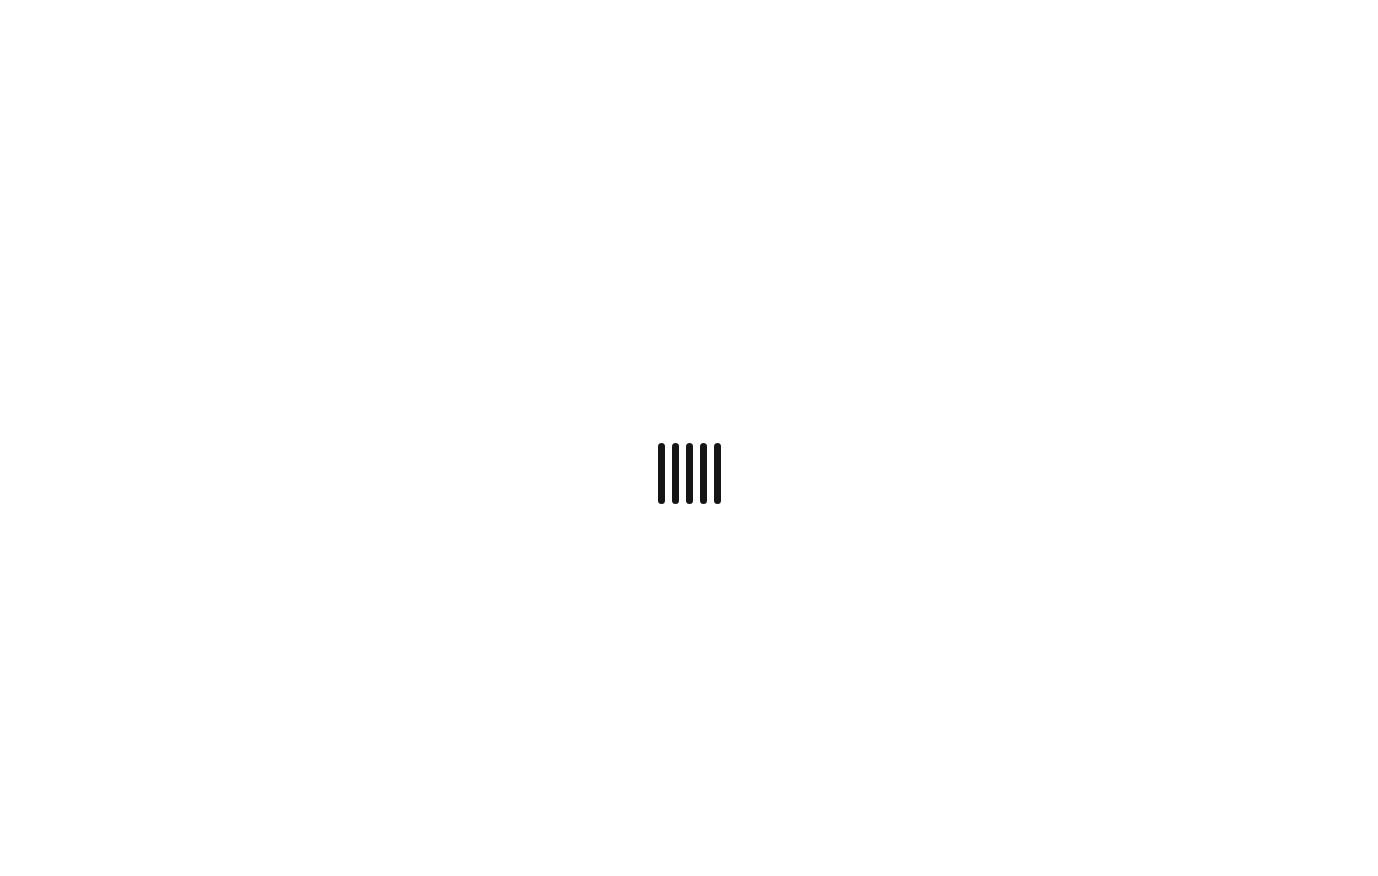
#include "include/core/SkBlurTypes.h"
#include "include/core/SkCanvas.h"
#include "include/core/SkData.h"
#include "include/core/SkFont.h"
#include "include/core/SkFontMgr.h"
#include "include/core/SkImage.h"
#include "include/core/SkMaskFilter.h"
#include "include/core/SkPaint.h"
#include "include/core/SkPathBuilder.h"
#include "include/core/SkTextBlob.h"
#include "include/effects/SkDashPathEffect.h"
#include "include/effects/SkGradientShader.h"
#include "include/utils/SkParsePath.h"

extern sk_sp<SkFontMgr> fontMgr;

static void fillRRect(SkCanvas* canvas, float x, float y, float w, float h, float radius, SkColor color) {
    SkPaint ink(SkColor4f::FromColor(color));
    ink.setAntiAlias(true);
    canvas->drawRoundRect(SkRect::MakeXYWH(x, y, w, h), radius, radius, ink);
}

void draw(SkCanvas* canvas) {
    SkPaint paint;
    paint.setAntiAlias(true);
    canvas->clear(0xFFFFFFFF);
    fillRRect(canvas, 658, 443, 7, 61, 3.5f, 0xFF151515);
    fillRRect(canvas, 672, 443, 7, 61, 3.5f, 0xFF151515);
    fillRRect(canvas, 686, 443, 7, 61, 3.5f, 0xFF151515);
    fillRRect(canvas, 700, 443, 7, 61, 3.5f, 0xFF151515);
    fillRRect(canvas, 714, 443, 7, 61, 3.5f, 0xFF151515);
}
